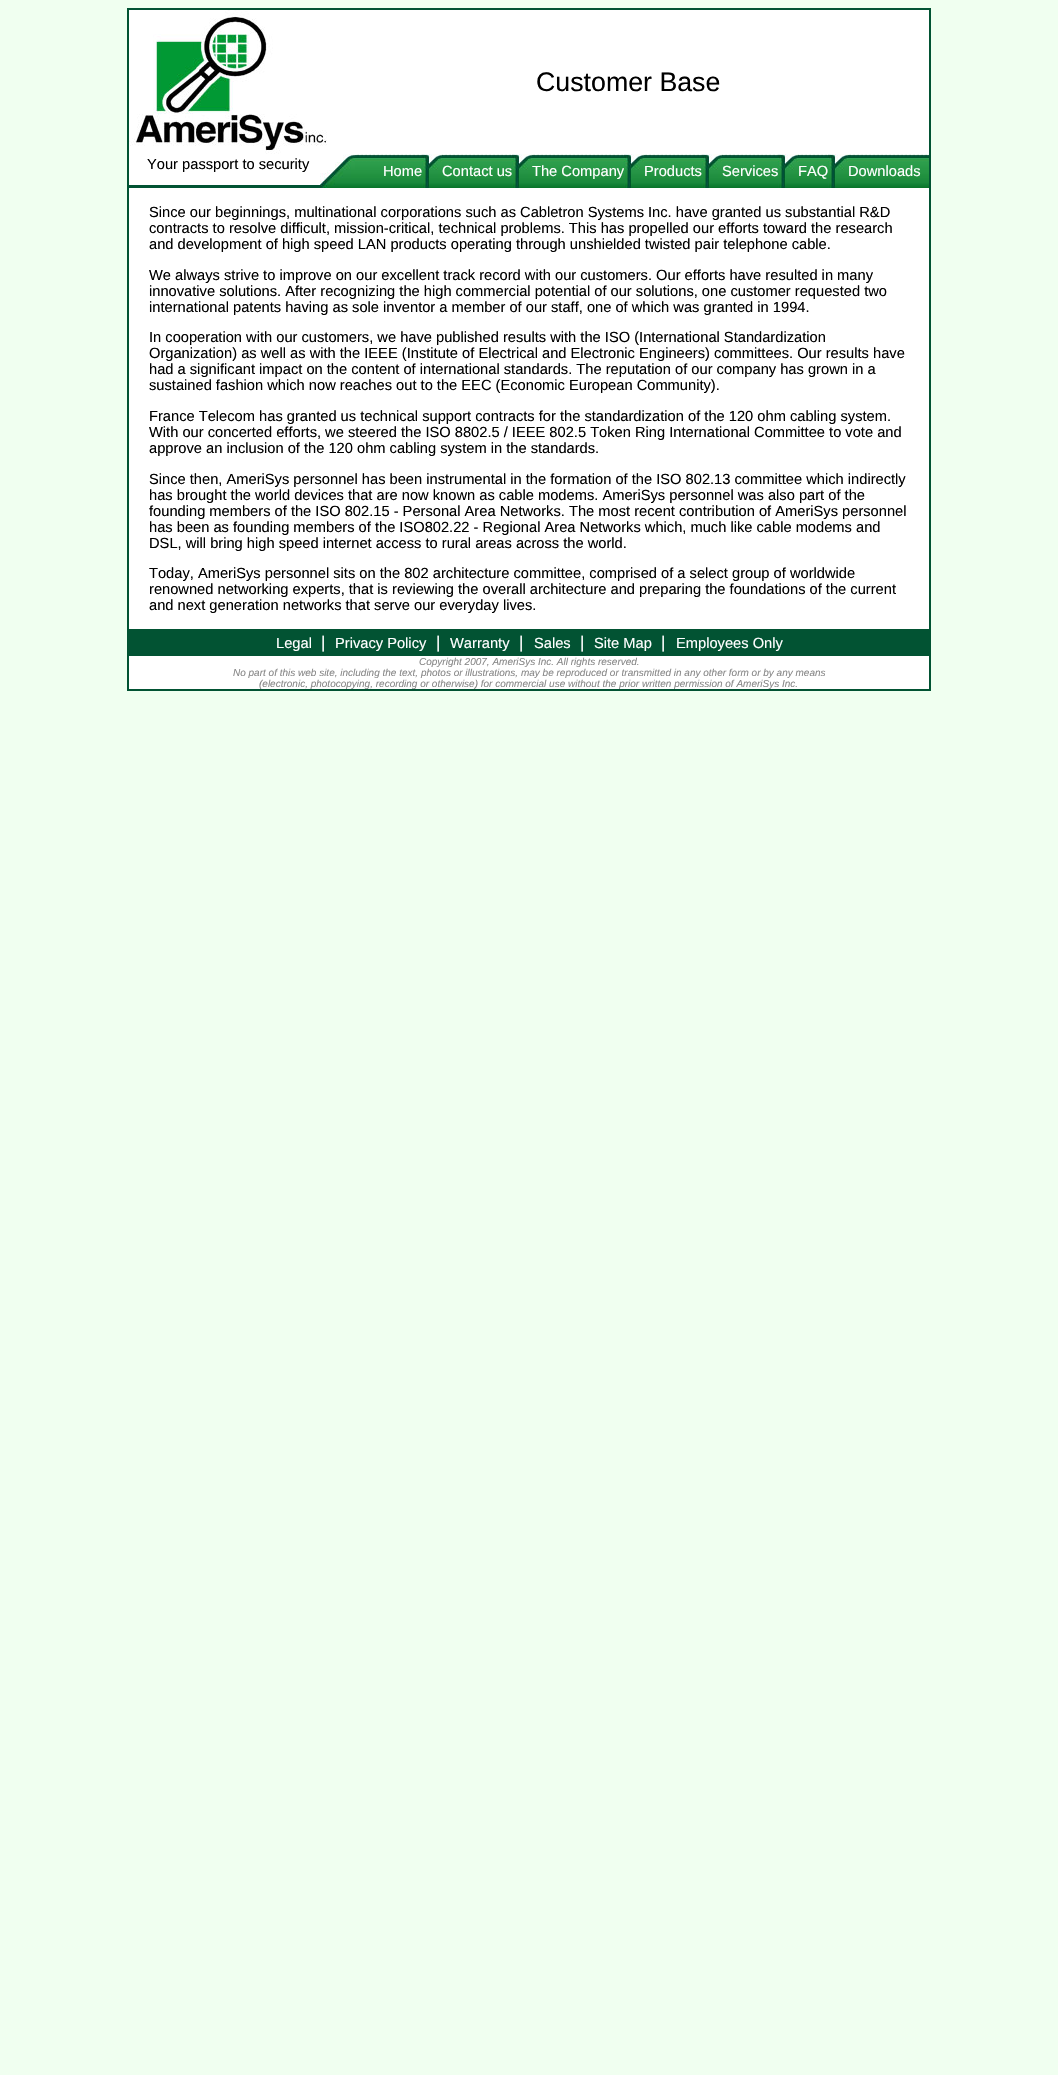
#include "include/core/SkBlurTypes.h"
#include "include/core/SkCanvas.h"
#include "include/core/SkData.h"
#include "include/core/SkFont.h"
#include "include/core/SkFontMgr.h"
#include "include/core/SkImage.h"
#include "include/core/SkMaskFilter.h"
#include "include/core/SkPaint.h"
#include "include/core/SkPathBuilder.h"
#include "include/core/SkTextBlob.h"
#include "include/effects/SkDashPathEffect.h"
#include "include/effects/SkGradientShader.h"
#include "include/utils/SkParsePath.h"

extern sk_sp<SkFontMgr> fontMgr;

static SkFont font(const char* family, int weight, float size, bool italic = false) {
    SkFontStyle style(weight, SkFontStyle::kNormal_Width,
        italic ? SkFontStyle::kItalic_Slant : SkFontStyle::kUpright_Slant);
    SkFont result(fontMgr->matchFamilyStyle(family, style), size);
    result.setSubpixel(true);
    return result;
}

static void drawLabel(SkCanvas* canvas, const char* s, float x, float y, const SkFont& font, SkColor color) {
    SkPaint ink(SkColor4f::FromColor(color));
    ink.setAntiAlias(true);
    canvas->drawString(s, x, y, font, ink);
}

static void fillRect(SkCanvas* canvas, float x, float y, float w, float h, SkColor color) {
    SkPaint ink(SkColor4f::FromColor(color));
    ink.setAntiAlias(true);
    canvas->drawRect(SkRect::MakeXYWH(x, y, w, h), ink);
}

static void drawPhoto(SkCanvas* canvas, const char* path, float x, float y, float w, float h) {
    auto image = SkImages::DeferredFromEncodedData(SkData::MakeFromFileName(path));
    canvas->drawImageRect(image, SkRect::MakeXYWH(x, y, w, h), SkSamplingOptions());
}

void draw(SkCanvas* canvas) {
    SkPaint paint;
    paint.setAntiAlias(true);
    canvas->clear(0xFFF0FFF0);
    paint.setStroke(true);
    paint.setStrokeWidth(1);
    paint.setColor(0xFF025333);
    canvas->drawRect(SkRect::MakeXYWH(127.5f, 8.5f, 803, 682), paint);
    canvas->drawRect(SkRect::MakeXYWH(128.5f, 9.5f, 801, 680), paint);
    fillRect(canvas, 129, 10, 800, 679, 0xFFFFFFFF);
    drawPhoto(canvas, "assets/img1.png", 129, 10, 198, 144);
    SkFont font1 = font("Liberation Sans", 400, 26.75f);
    drawLabel(canvas, "Customer Base", 536, 91, font1, 0xFF000000);
    SkFont font2 = font("Liberation Sans", 400, 14.67f);
    drawLabel(canvas, "Your passport to security", 147, 169, font2, 0xFF000000);
    drawPhoto(canvas, "assets/img2.png", 327, 186, 28, 2);
    drawPhoto(canvas, "assets/img3.png", 327, 154, 28, 32);
    drawPhoto(canvas, "assets/img4.png", 355, 154, 574, 34);
    drawLabel(canvas, "Home", 383, 176, font2, 0xFFFFFFFF);
    drawPhoto(canvas, "assets/img5.png", 422, 154, 20, 34);
    drawLabel(canvas, "Contact us", 442, 176, font2, 0xFFFFFFFF);
    drawPhoto(canvas, "assets/img5.png", 512, 154, 20, 34);
    drawLabel(canvas, "The Company", 532, 176, font2, 0xFFFFFFFF);
    drawPhoto(canvas, "assets/img5.png", 624, 154, 20, 34);
    drawLabel(canvas, "Products", 644, 176, font2, 0xFFFFFFFF);
    drawPhoto(canvas, "assets/img5.png", 702, 154, 20, 34);
    drawLabel(canvas, "Services", 722, 176, font2, 0xFFFFFFFF);
    drawPhoto(canvas, "assets/img5.png", 778, 154, 20, 34);
    drawLabel(canvas, "FAQ", 798, 176, font2, 0xFFFFFFFF);
    drawPhoto(canvas, "assets/img5.png", 828, 154, 20, 34);
    drawLabel(canvas, "Downloads", 848, 176, font2, 0xFFFFFFFF);
    fillRect(canvas, 129, 185, 191, 3, 0xFF025333);
    drawPhoto(canvas, "assets/img6.png", 320, 173, 7, 15);
    drawLabel(canvas, "Since our beginnings, multinational corporations such as Cabletron Systems Inc. have granted us substantial R&D", 149, 217, font2, 0xFF000000);
    drawLabel(canvas, "contracts to resolve difficult, mission-critical, technical problems. This has propelled our efforts toward the research", 149, 233, font2, 0xFF000000);
    drawLabel(canvas, "and development of high speed LAN products operating through unshielded twisted pair telephone cable.", 149, 249, font2, 0xFF000000);
    drawLabel(canvas, "We always strive to improve on our excellent track record with", 149, 280, font2, 0xFF000000);
    drawLabel(canvas, "our customers. Our efforts have resulted in many", 555, 280, font2, 0xFF000000);
    drawLabel(canvas, "innovative solutions. After recognizing the high commercial potential of our solutions, one customer requested two", 149, 296, font2, 0xFF000000);
    drawLabel(canvas, "international patents having as sole inventor a member of our staff, one of which was granted in 1994.", 149, 312, font2, 0xFF000000);
    drawLabel(canvas, "In cooperation with our customers, we have published results with the ISO (International Standardization", 149, 342, font2, 0xFF000000);
    drawLabel(canvas, "Organization) as well as with the IEEE (Institute of Electrical and Electronic Engineers) committees. Our results have", 149, 358, font2, 0xFF000000);
    drawLabel(canvas, "had a significant impact on the content of international standards. The reputation of our company has grown in a", 149, 374, font2, 0xFF000000);
    drawLabel(canvas, "sustained fashion which now reaches out to the EEC (Economic European Community).", 149, 390, font2, 0xFF000000);
    drawLabel(canvas, "France Telecom has granted us technical support contracts for the standardization of the 120 ohm cabling system.", 149, 421, font2, 0xFF000000);
    drawLabel(canvas, "With our concerted efforts, we steered the ISO 8802.5 / IEEE 802.5 Token Ring International Committee to vote and", 149, 437, font2, 0xFF000000);
    drawLabel(canvas, "approve an inclusion of the 120 ohm cabling system in the standards.", 149, 453, font2, 0xFF000000);
    drawLabel(canvas, "Since then, AmeriSys personnel has been instrumental in the formation of the ISO 802.13 committee which indirectly", 149, 484, font2, 0xFF000000);
    drawLabel(canvas, "has brought the world devices that are now known as cable modems. AmeriSys personnel was also part of the", 149, 500, font2, 0xFF000000);
    drawLabel(canvas, "founding members of the ISO 802.15 - Personal Area Networks. The most recent contribution of AmeriSys personnel", 149, 516, font2, 0xFF000000);
    drawLabel(canvas, "has been as founding members of the ISO802.22 - Regional Area Networks which, much like cable modems and", 149, 532, font2, 0xFF000000);
    drawLabel(canvas, "DSL, will bring high speed internet access to rural areas across the world.", 149, 548, font2, 0xFF000000);
    drawLabel(canvas, "Today, AmeriSys personnel sits on the 802 architecture committee, comprised of a select group of worldwide", 149, 578, font2, 0xFF000000);
    drawLabel(canvas, "renowned networking experts, that is reviewing the overall architecture and preparing the foundations of the current", 149, 594, font2, 0xFF000000);
    drawLabel(canvas, "and next generation networks that serve our everyday lives.", 149, 610, font2, 0xFF000000);
    fillRect(canvas, 129, 629, 800, 27, 0xFF025333);
    drawLabel(canvas, "Legal", 276, 648, font2, 0xFFFFFFFF);
    SkFont font3 = font("Liberation Sans", 400, 17);
    drawLabel(canvas, "|", 321, 648, font3, 0xFFFFFFFF);
    drawLabel(canvas, "Privacy Policy", 335, 648, font2, 0xFFFFFFFF);
    drawLabel(canvas, "|", 436, 648, font3, 0xFFFFFFFF);
    drawLabel(canvas, "Warranty", 450, 648, font2, 0xFFFFFFFF);
    drawLabel(canvas, "|", 519, 648, font3, 0xFFFFFFFF);
    drawLabel(canvas, "Sales", 534, 648, font2, 0xFFFFFFFF);
    drawLabel(canvas, "|", 580, 648, font3, 0xFFFFFFFF);
    drawLabel(canvas, "Site Map", 594, 648, font2, 0xFFFFFFFF);
    drawLabel(canvas, "|", 661, 648, font3, 0xFFFFFFFF);
    drawLabel(canvas, "Employees Only", 676, 648, font2, 0xFFFFFFFF);
    SkFont font4 = font("Liberation Sans", 400, 10, true);
    drawLabel(canvas, "Copyright 2007, AmeriSys Inc. All rights reserved.", 419, 665, font4, 0xFF888888);
    drawLabel(canvas, "No part of this web site, including the text, photos or illustrations, may be reproduced or transmitted in any other form or by any means", 233, 676, font4, 0xFF888888);
    drawLabel(canvas, "(electronic, photocopying, recording or otherwise) for commercial use without the prior written permission of AmeriSys Inc.", 259, 687, font4, 0xFF888888);
}
